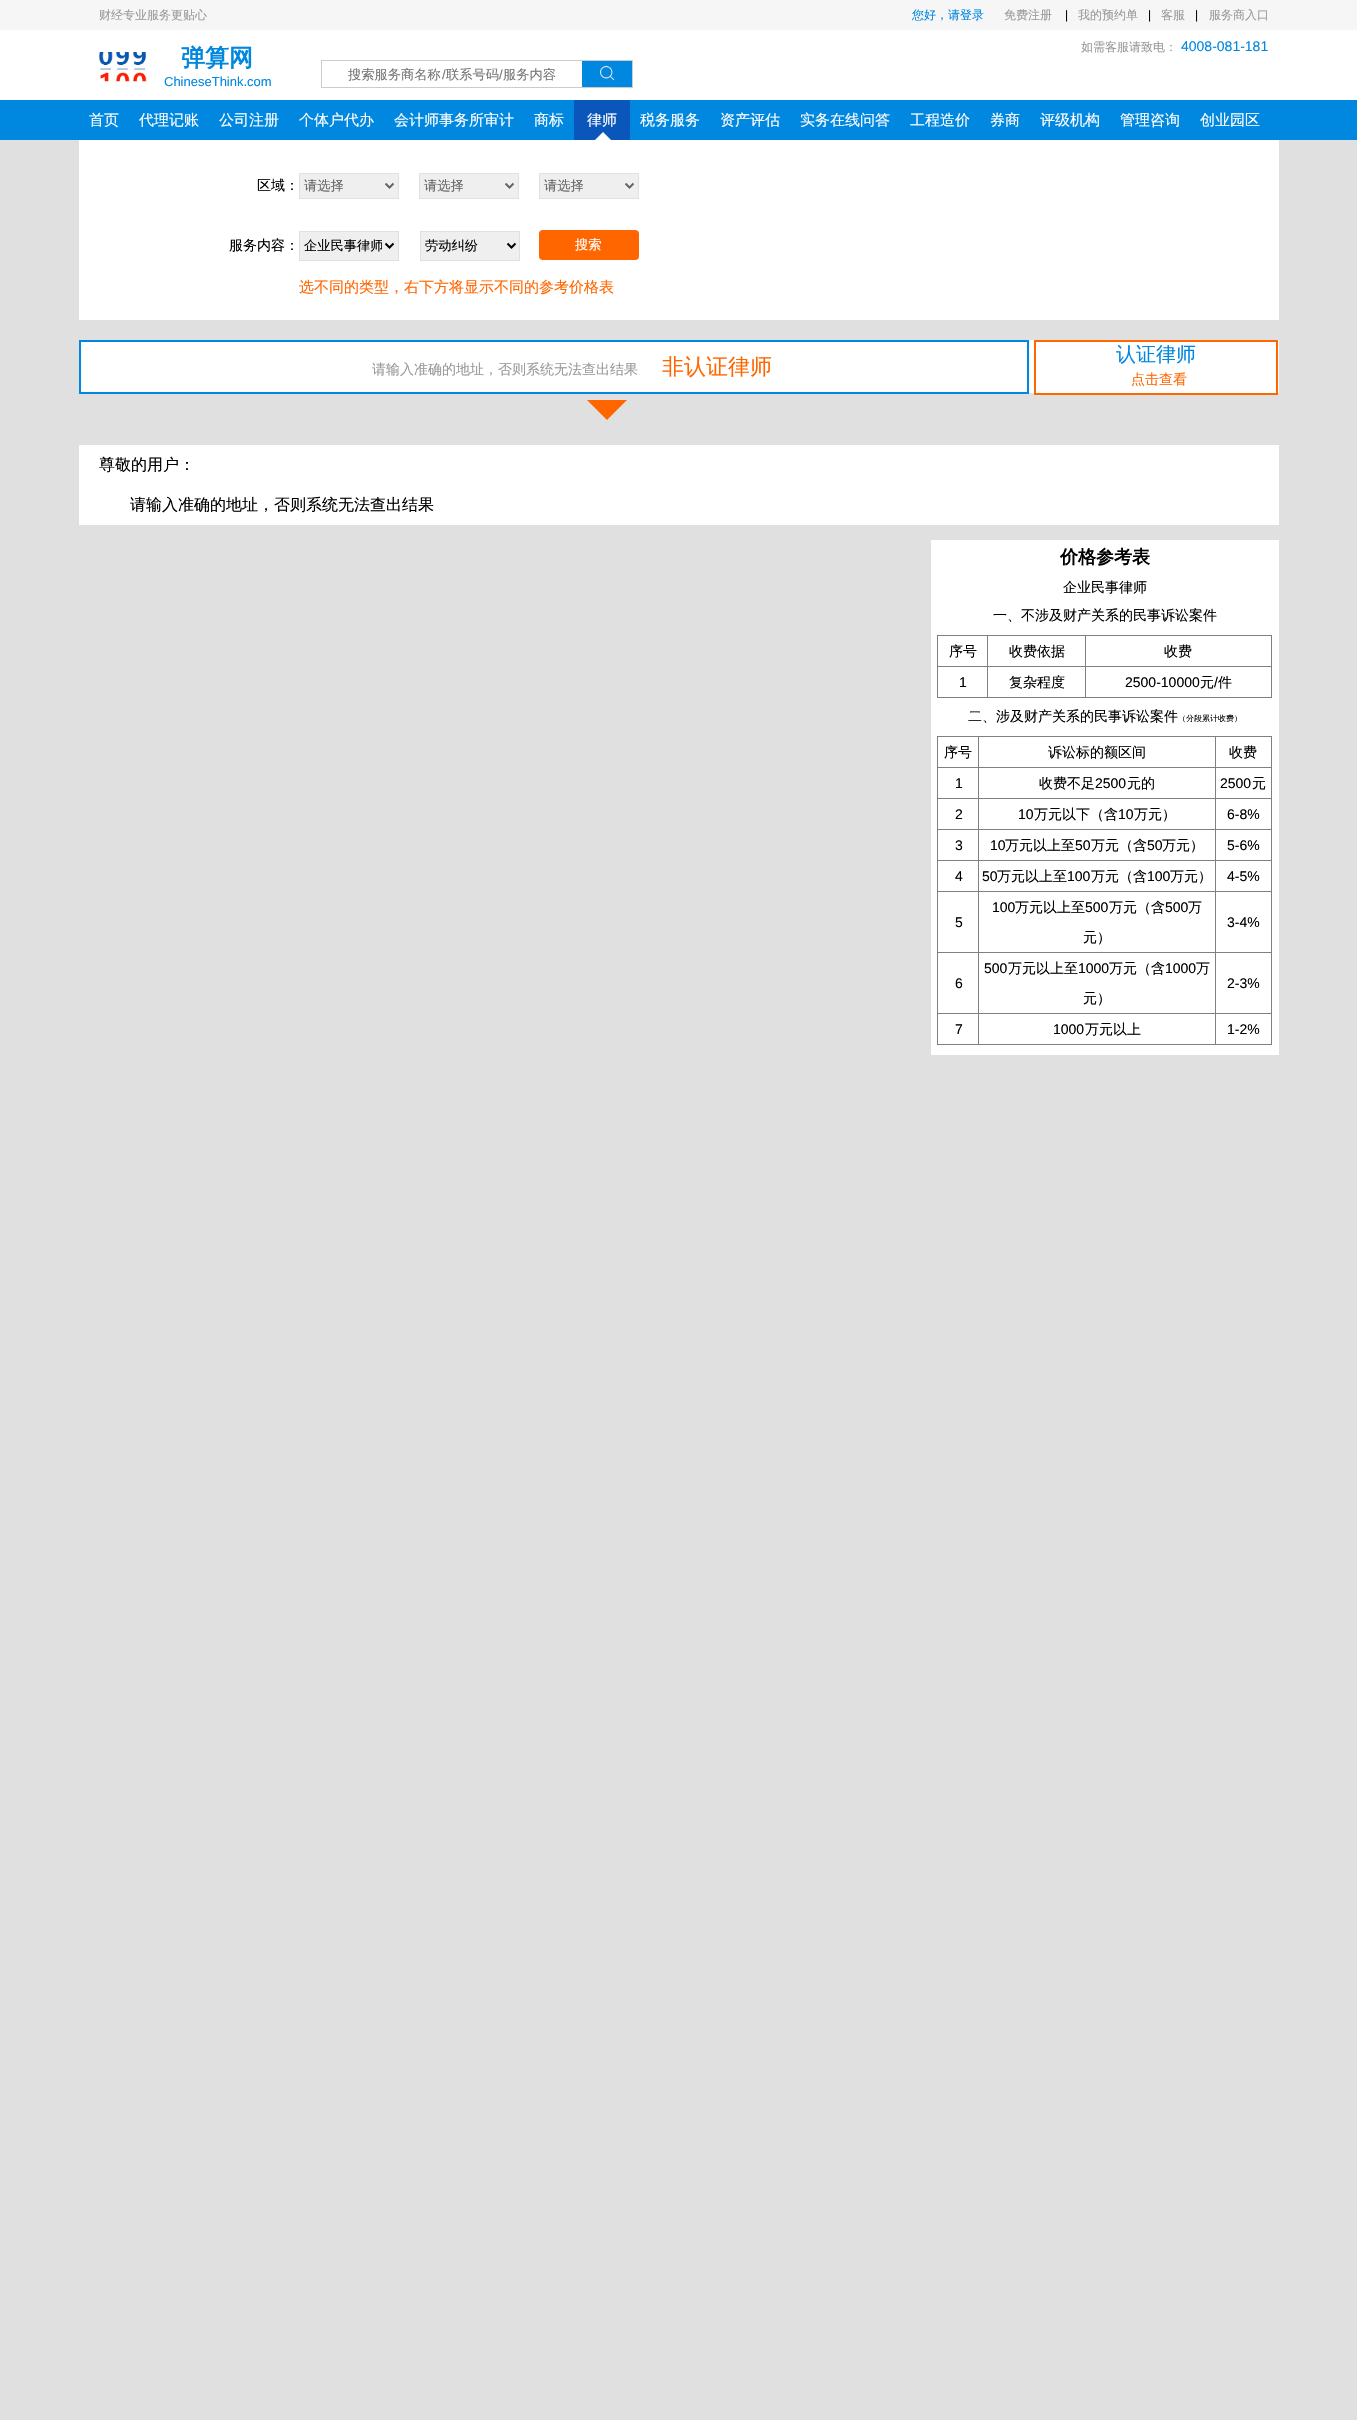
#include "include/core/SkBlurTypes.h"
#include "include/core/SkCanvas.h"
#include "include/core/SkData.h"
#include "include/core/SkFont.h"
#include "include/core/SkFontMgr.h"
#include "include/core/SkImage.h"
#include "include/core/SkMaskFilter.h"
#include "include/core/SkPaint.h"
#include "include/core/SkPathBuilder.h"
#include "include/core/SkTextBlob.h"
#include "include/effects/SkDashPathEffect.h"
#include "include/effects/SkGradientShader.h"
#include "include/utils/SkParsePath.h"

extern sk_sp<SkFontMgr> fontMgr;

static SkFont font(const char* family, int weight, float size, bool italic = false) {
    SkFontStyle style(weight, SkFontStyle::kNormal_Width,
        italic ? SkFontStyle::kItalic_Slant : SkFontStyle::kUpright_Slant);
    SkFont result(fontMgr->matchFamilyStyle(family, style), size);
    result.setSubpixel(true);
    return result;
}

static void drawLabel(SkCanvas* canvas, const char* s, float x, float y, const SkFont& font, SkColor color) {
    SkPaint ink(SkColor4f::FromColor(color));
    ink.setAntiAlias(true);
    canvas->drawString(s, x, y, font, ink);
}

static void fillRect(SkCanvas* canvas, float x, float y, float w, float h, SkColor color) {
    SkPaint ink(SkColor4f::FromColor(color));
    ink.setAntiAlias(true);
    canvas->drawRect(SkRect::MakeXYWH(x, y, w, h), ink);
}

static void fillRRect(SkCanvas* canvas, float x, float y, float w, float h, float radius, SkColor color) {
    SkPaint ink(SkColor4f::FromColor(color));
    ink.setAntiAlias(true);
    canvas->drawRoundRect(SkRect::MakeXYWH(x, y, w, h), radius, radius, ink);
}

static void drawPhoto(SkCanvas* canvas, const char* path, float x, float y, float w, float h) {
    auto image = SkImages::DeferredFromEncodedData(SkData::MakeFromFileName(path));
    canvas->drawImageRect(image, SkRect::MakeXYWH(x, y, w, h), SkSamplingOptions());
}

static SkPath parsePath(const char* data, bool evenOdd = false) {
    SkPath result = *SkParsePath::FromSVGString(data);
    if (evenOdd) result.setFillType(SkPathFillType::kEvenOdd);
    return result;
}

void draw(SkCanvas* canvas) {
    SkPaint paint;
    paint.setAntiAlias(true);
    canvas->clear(0xFFE0E0E0);
    fillRect(canvas, 0, 30, 1357, 70, 0xFFFFFFFF);
    fillRect(canvas, 0, 0, 1357, 30, 0xFFF6F6F6);
    SkFont font1 = font("WenQuanYi Zen Hei", 500, 12);
    drawLabel(canvas, "财经专业服务更贴心", 99, 19, font1, 0xFF999999);
    drawLabel(canvas, "您好，请登录", 912, 19, font1, 0xFF0087E0);
    drawLabel(canvas, "免费注册", 1004, 19, font1, 0xFF999999);
    SkFont font2 = font("Liberation Sans", 400, 12);
    drawLabel(canvas, "|", 1065, 19, font2, 0xFF000000);
    drawLabel(canvas, "我的预约单", 1078, 19, font1, 0xFF999999);
    drawLabel(canvas, "|", 1148, 19, font2, 0xFF000000);
    drawLabel(canvas, "客服", 1161, 19, font1, 0xFF999999);
    drawLabel(canvas, "|", 1195, 19, font2, 0xFF000000);
    drawLabel(canvas, "服务商入口", 1209, 19, font1, 0xFF999999);
    drawPhoto(canvas, "assets/img1.png", 99, 52, 48, 30);
    SkFont font3 = font("WenQuanYi Zen Hei", 700, 24);
    drawLabel(canvas, "弹算网", 181, 66, font3, 0xFF0087E0);
    SkFont font4 = font("Liberation Sans", 400, 13);
    drawLabel(canvas, "ChineseThink.com", 164, 86, font4, 0xFF0087E0);
    paint.setStroke(true);
    paint.setStrokeWidth(1);
    paint.setColor(0xFFCCCCCC);
    canvas->drawRect(SkRect::MakeXYWH(321.5f, 60.5f, 311, 27), paint);
    SkFont font5 = font("WenQuanYi Zen Hei", 500, 13.25f);
    drawLabel(canvas, "搜索服务商名称", 348, 79, font5, 0xFF757575);
    SkFont font6 = font("Liberation Sans", 400, 13.25f);
    drawLabel(canvas, "/", 442, 79, font6, 0xFF757575);
    drawLabel(canvas, "联系号码", 446, 79, font5, 0xFF757575);
    drawLabel(canvas, "/", 499, 79, font6, 0xFF757575);
    drawLabel(canvas, "服务内容", 503, 79, font5, 0xFF757575);
    fillRect(canvas, 582, 61, 50, 26, 0xFF0087E0);
    drawPhoto(canvas, "assets/img2.png", 599, 65, 16, 16);
    drawLabel(canvas, "如需客服请致电：", 1081, 51, font1, 0xFF999999);
    SkFont font7 = font("Liberation Sans", 400, 14);
    drawLabel(canvas, "4008-081-181", 1181, 51, font7, 0xFF0087E0);
    fillRect(canvas, 0, 100, 1357, 40, 0xFF0087E0);
    SkFont font8 = font("WenQuanYi Zen Hei", 500, 15);
    drawLabel(canvas, "首页", 89, 125, font8, 0xFFFFFFFF);
    drawLabel(canvas, "代理记账", 139, 125, font8, 0xFFFFFFFF);
    drawLabel(canvas, "公司注册", 219, 125, font8, 0xFFFFFFFF);
    drawLabel(canvas, "个体户代办", 299, 125, font8, 0xFFFFFFFF);
    drawLabel(canvas, "会计师事务所审计", 394, 125, font8, 0xFFFFFFFF);
    drawLabel(canvas, "商标", 534, 125, font8, 0xFFFFFFFF);
    fillRect(canvas, 574, 100, 56, 40, 0xFF0A56BB);
    drawLabel(canvas, "律师", 587, 125, font8, 0xFFFFFFFF);
    paint.setStroke(false);
    paint.setColor(0xFFFFFFFF);
    canvas->drawPath(parsePath("M611 140H595L603 132Z"), paint);
    drawLabel(canvas, "税务服务", 640, 125, font8, 0xFFFFFFFF);
    drawLabel(canvas, "资产评估", 720, 125, font8, 0xFFFFFFFF);
    drawLabel(canvas, "实务在线问答", 800, 125, font8, 0xFFFFFFFF);
    drawLabel(canvas, "工程造价", 910, 125, font8, 0xFFFFFFFF);
    drawLabel(canvas, "券商", 990, 125, font8, 0xFFFFFFFF);
    drawLabel(canvas, "评级机构", 1040, 125, font8, 0xFFFFFFFF);
    drawLabel(canvas, "管理咨询", 1120, 125, font8, 0xFFFFFFFF);
    drawLabel(canvas, "创业园区", 1200, 125, font8, 0xFFFFFFFF);
    fillRect(canvas, 79, 140, 1200, 180, 0xFFFFFFFF);
    SkFont font9 = font("WenQuanYi Zen Hei", 500, 14);
    drawLabel(canvas, "区域：", 257, 190, font9, 0xFF000000);
    paint.setColor(0xFFEFEFEF);
    canvas->drawRect(SkRect::MakeXYWH(299.5f, 173.5f, 99, 25), paint);
    paint.setStroke(true);
    paint.setColor(0xFFE0E0E0);
    canvas->drawRect(SkRect::MakeXYWH(299.5f, 173.5f, 99, 25), paint);
    paint.setStrokeWidth(2);
    paint.setColor(0xFF666666);
    canvas->drawPath(parsePath("M385.5 183.5L389.5 187.5L393.5 183.5"), paint);
    drawLabel(canvas, "请选择", 304, 190, font5, 0xFF666666);
    paint.setStroke(false);
    paint.setColor(0xFFEFEFEF);
    canvas->drawRect(SkRect::MakeXYWH(419.5f, 173.5f, 99, 25), paint);
    paint.setStroke(true);
    paint.setStrokeWidth(1);
    paint.setColor(0xFFE0E0E0);
    canvas->drawRect(SkRect::MakeXYWH(419.5f, 173.5f, 99, 25), paint);
    paint.setStrokeWidth(2);
    paint.setColor(0xFF666666);
    canvas->drawPath(parsePath("M505.5 183.5L509.5 187.5L513.5 183.5"), paint);
    drawLabel(canvas, "请选择", 424, 190, font5, 0xFF666666);
    paint.setStroke(false);
    paint.setColor(0xFFEFEFEF);
    canvas->drawRect(SkRect::MakeXYWH(539.5f, 173.5f, 99, 25), paint);
    paint.setStroke(true);
    paint.setStrokeWidth(1);
    paint.setColor(0xFFE0E0E0);
    canvas->drawRect(SkRect::MakeXYWH(539.5f, 173.5f, 99, 25), paint);
    paint.setStrokeWidth(2);
    paint.setColor(0xFF666666);
    canvas->drawPath(parsePath("M625.5 183.5L629.5 187.5L633.5 183.5"), paint);
    drawLabel(canvas, "请选择", 544, 190, font5, 0xFF666666);
    drawLabel(canvas, "服务内容：", 229, 250, font9, 0xFF000000);
    paint.setStroke(false);
    paint.setColor(0xFFEFEFEF);
    canvas->drawRect(SkRect::MakeXYWH(299.5f, 231.5f, 99, 29), paint);
    paint.setStroke(true);
    paint.setStrokeWidth(1);
    paint.setColor(0xFFE0E0E0);
    canvas->drawRect(SkRect::MakeXYWH(299.5f, 231.5f, 99, 29), paint);
    paint.setStrokeWidth(2);
    paint.setColor(0xFF000000);
    canvas->drawPath(parsePath("M385.5 243.5L389.5 247.5L393.5 243.5"), paint);
    canvas->save();
    canvas->clipRect(SkRect::MakeXYWH(304, 237, 78, 17));
    drawLabel(canvas, "企业民事律师", 304, 250, font5, 0xFF000000);
    canvas->restore();
    paint.setStroke(false);
    paint.setColor(0xFFEFEFEF);
    canvas->drawRect(SkRect::MakeXYWH(420.5f, 231.5f, 99, 29), paint);
    paint.setStroke(true);
    paint.setStrokeWidth(1);
    paint.setColor(0xFFE0E0E0);
    canvas->drawRect(SkRect::MakeXYWH(420.5f, 231.5f, 99, 29), paint);
    paint.setStrokeWidth(2);
    paint.setColor(0xFF000000);
    canvas->drawPath(parsePath("M507.5 243.5L511.5 247.5L515.5 243.5"), paint);
    drawLabel(canvas, "劳动纠纷", 425, 250, font5, 0xFF000000);
    fillRRect(canvas, 539, 230, 100, 30, 4, 0xFFFF6600);
    drawLabel(canvas, "搜索", 575, 249, font5, 0xFFFFFFFF);
    drawLabel(canvas, "选不同的类型，右下方将显示不同的参考价格表", 299, 292, font8, 0xFFFF6600);
    fillRect(canvas, 81, 340, 1198, 53, 0xFFFFFFFF);
    paint.setColor(0xFF0087E0);
    canvas->drawRect(SkRect::MakeXYWH(80, 341, 948, 52), paint);
    drawLabel(canvas, "请输入准确的地址，否则系统无法查出结果", 372, 374, font9, 0xFF999999);
    SkFont font10 = font("WenQuanYi Zen Hei", 500, 22);
    drawLabel(canvas, "非认证律师", 662, 374, font10, 0xFFFF6600);
    paint.setColor(0xFFFF6600);
    canvas->drawRect(SkRect::MakeXYWH(1035, 341, 242, 53), paint);
    SkFont font11 = font("WenQuanYi Zen Hei", 500, 20);
    drawLabel(canvas, "认证律师", 1116, 361, font11, 0xFF0087E0);
    drawLabel(canvas, "点击查看", 1131, 384, font9, 0xFFFF6600);
    paint.setStroke(false);
    canvas->drawPath(parsePath("M587 400H627L607 420Z"), paint);
    fillRect(canvas, 79, 445, 1200, 80, 0xFFFFFFFF);
    SkFont font12 = font("WenQuanYi Zen Hei", 500, 16);
    drawLabel(canvas, "尊敬的用户：", 99, 470, font12, 0xFF000000);
    drawLabel(canvas, "请输入准确的地址，否则系统无法查出结果", 130, 510, font12, 0xFF000000);
    fillRect(canvas, 931, 540, 348, 515, 0xFFFFFFFF);
    SkFont font13 = font("WenQuanYi Zen Hei", 700, 18);
    drawLabel(canvas, "价格参考表", 1060, 563, font13, 0xFF000000);
    drawLabel(canvas, "企业民事律师", 1063, 592, font9, 0xFF000000);
    drawLabel(canvas, "一、不涉及财产关系的民事诉讼案件", 993, 620, font9, 0xFF000000);
    fillRect(canvas, 937, 635, 335, 1, 0xFF808080);
    fillRect(canvas, 1271, 635, 1, 63, 0xFF808080);
    fillRect(canvas, 937, 697, 335, 1, 0xFF808080);
    fillRect(canvas, 937, 635, 1, 63, 0xFF808080);
    drawLabel(canvas, "序号", 949, 656, font9, 0xFF000000);
    fillRect(canvas, 1085, 666, 187, 1, 0xFF808080);
    fillRect(canvas, 1085, 666, 1, 32, 0xFF808080);
    fillRect(canvas, 987, 666, 99, 1, 0xFF808080);
    fillRect(canvas, 987, 666, 1, 32, 0xFF808080);
    fillRect(canvas, 937, 666, 51, 1, 0xFF808080);
    fillRect(canvas, 987, 635, 1, 32, 0xFF808080);
    drawLabel(canvas, "收费依据", 1009, 656, font9, 0xFF000000);
    fillRect(canvas, 1085, 635, 1, 32, 0xFF808080);
    drawLabel(canvas, "收费", 1164, 656, font9, 0xFF000000);
    drawLabel(canvas, "1", 959, 687, font7, 0xFF000000);
    drawLabel(canvas, "复杂程度", 1009, 687, font9, 0xFF000000);
    drawLabel(canvas, "2500-10000", 1125, 687, font7, 0xFF000000);
    drawLabel(canvas, "元", 1200, 687, font9, 0xFF000000);
    drawLabel(canvas, "/", 1214, 687, font7, 0xFF000000);
    drawLabel(canvas, "件", 1218, 687, font9, 0xFF000000);
    drawLabel(canvas, "二、涉及财产关系的民事诉讼案件", 968, 721, font9, 0xFF000000);
    SkFont font14 = font("WenQuanYi Zen Hei", 500, 8);
    drawLabel(canvas, "（分段累计收费）", 1178, 721, font14, 0xFF000000);
    fillRect(canvas, 937, 736, 335, 1, 0xFF808080);
    fillRect(canvas, 1271, 736, 1, 309, 0xFF808080);
    fillRect(canvas, 937, 1044, 335, 1, 0xFF808080);
    fillRect(canvas, 937, 736, 1, 309, 0xFF808080);
    drawLabel(canvas, "序号", 944, 757, font9, 0xFF000000);
    fillRect(canvas, 1215, 767, 57, 1, 0xFF808080);
    fillRect(canvas, 1215, 798, 57, 1, 0xFF808080);
    fillRect(canvas, 1215, 829, 57, 1, 0xFF808080);
    fillRect(canvas, 1215, 860, 57, 1, 0xFF808080);
    fillRect(canvas, 1215, 891, 57, 1, 0xFF808080);
    fillRect(canvas, 1215, 952, 57, 1, 0xFF808080);
    fillRect(canvas, 1215, 1013, 57, 1, 0xFF808080);
    fillRect(canvas, 1215, 1013, 1, 32, 0xFF808080);
    fillRect(canvas, 978, 1013, 238, 1, 0xFF808080);
    fillRect(canvas, 1215, 952, 1, 62, 0xFF808080);
    fillRect(canvas, 978, 952, 238, 1, 0xFF808080);
    fillRect(canvas, 1215, 891, 1, 62, 0xFF808080);
    fillRect(canvas, 978, 891, 238, 1, 0xFF808080);
    fillRect(canvas, 1215, 860, 1, 32, 0xFF808080);
    fillRect(canvas, 978, 860, 238, 1, 0xFF808080);
    fillRect(canvas, 1215, 829, 1, 32, 0xFF808080);
    fillRect(canvas, 978, 829, 238, 1, 0xFF808080);
    fillRect(canvas, 1215, 798, 1, 32, 0xFF808080);
    fillRect(canvas, 978, 798, 238, 1, 0xFF808080);
    fillRect(canvas, 1215, 767, 1, 32, 0xFF808080);
    fillRect(canvas, 978, 767, 238, 1, 0xFF808080);
    fillRect(canvas, 978, 1013, 1, 32, 0xFF808080);
    fillRect(canvas, 937, 1013, 42, 1, 0xFF808080);
    fillRect(canvas, 978, 952, 1, 62, 0xFF808080);
    fillRect(canvas, 937, 952, 42, 1, 0xFF808080);
    fillRect(canvas, 978, 891, 1, 62, 0xFF808080);
    fillRect(canvas, 937, 891, 42, 1, 0xFF808080);
    fillRect(canvas, 978, 860, 1, 32, 0xFF808080);
    fillRect(canvas, 937, 860, 42, 1, 0xFF808080);
    fillRect(canvas, 978, 829, 1, 32, 0xFF808080);
    fillRect(canvas, 937, 829, 42, 1, 0xFF808080);
    fillRect(canvas, 978, 798, 1, 32, 0xFF808080);
    fillRect(canvas, 937, 798, 42, 1, 0xFF808080);
    fillRect(canvas, 978, 767, 1, 32, 0xFF808080);
    fillRect(canvas, 937, 767, 42, 1, 0xFF808080);
    fillRect(canvas, 978, 736, 1, 32, 0xFF808080);
    drawLabel(canvas, "诉讼标的额区间", 1048, 757, font9, 0xFF000000);
    fillRect(canvas, 1215, 736, 1, 32, 0xFF808080);
    drawLabel(canvas, "收费", 1229, 757, font9, 0xFF000000);
    drawLabel(canvas, "1", 955, 788, font7, 0xFF000000);
    drawLabel(canvas, "收费不足", 1039, 788, font9, 0xFF000000);
    drawLabel(canvas, "2500", 1095, 788, font7, 0xFF000000);
    drawLabel(canvas, "元的", 1127, 788, font9, 0xFF000000);
    drawLabel(canvas, "2500", 1220, 788, font7, 0xFF000000);
    drawLabel(canvas, "元", 1252, 788, font9, 0xFF000000);
    drawLabel(canvas, "2", 955, 819, font7, 0xFF000000);
    drawLabel(canvas, "10", 1018, 819, font7, 0xFF000000);
    drawLabel(canvas, "万元以下（含", 1034, 819, font9, 0xFF000000);
    drawLabel(canvas, "10", 1118, 819, font7, 0xFF000000);
    drawLabel(canvas, "万元）", 1134, 819, font9, 0xFF000000);
    drawLabel(canvas, "6-8%", 1227, 819, font7, 0xFF000000);
    drawLabel(canvas, "3", 955, 850, font7, 0xFF000000);
    drawLabel(canvas, "10", 990, 850, font7, 0xFF000000);
    drawLabel(canvas, "万元以上至", 1005, 850, font9, 0xFF000000);
    drawLabel(canvas, "50", 1075, 850, font7, 0xFF000000);
    drawLabel(canvas, "万元（含", 1091, 850, font9, 0xFF000000);
    drawLabel(canvas, "50", 1147, 850, font7, 0xFF000000);
    drawLabel(canvas, "万元）", 1162, 850, font9, 0xFF000000);
    drawLabel(canvas, "5-6%", 1227, 850, font7, 0xFF000000);
    drawLabel(canvas, "4", 955, 881, font7, 0xFF000000);
    drawLabel(canvas, "50", 982, 881, font7, 0xFF000000);
    drawLabel(canvas, "万元以上至", 997, 881, font9, 0xFF000000);
    drawLabel(canvas, "100", 1067, 881, font7, 0xFF000000);
    drawLabel(canvas, "万元（含", 1091, 881, font9, 0xFF000000);
    drawLabel(canvas, "100", 1147, 881, font7, 0xFF000000);
    drawLabel(canvas, "万元）", 1170, 881, font9, 0xFF000000);
    drawLabel(canvas, "4-5%", 1227, 881, font7, 0xFF000000);
    drawLabel(canvas, "5", 955, 927, font7, 0xFF000000);
    drawLabel(canvas, "100", 992, 912, font7, 0xFF000000);
    drawLabel(canvas, "万元以上至", 1015, 912, font9, 0xFF000000);
    drawLabel(canvas, "500", 1085, 912, font7, 0xFF000000);
    drawLabel(canvas, "万元（含", 1109, 912, font9, 0xFF000000);
    drawLabel(canvas, "500", 1165, 912, font7, 0xFF000000);
    drawLabel(canvas, "万", 1188, 912, font9, 0xFF000000);
    drawLabel(canvas, "元）", 1083, 942, font9, 0xFF000000);
    drawLabel(canvas, "3-4%", 1227, 927, font7, 0xFF000000);
    drawLabel(canvas, "6", 955, 988, font7, 0xFF000000);
    drawLabel(canvas, "500", 984, 973, font7, 0xFF000000);
    drawLabel(canvas, "万元以上至", 1008, 973, font9, 0xFF000000);
    drawLabel(canvas, "1000", 1078, 973, font7, 0xFF000000);
    drawLabel(canvas, "万元（含", 1109, 973, font9, 0xFF000000);
    drawLabel(canvas, "1000", 1165, 973, font7, 0xFF000000);
    drawLabel(canvas, "万", 1196, 973, font9, 0xFF000000);
    drawLabel(canvas, "元）", 1083, 1003, font9, 0xFF000000);
    drawLabel(canvas, "2-3%", 1227, 988, font7, 0xFF000000);
    drawLabel(canvas, "7", 955, 1034, font7, 0xFF000000);
    drawLabel(canvas, "1000", 1053, 1034, font7, 0xFF000000);
    drawLabel(canvas, "万元以上", 1085, 1034, font9, 0xFF000000);
    drawLabel(canvas, "1-2%", 1227, 1034, font7, 0xFF000000);
}
